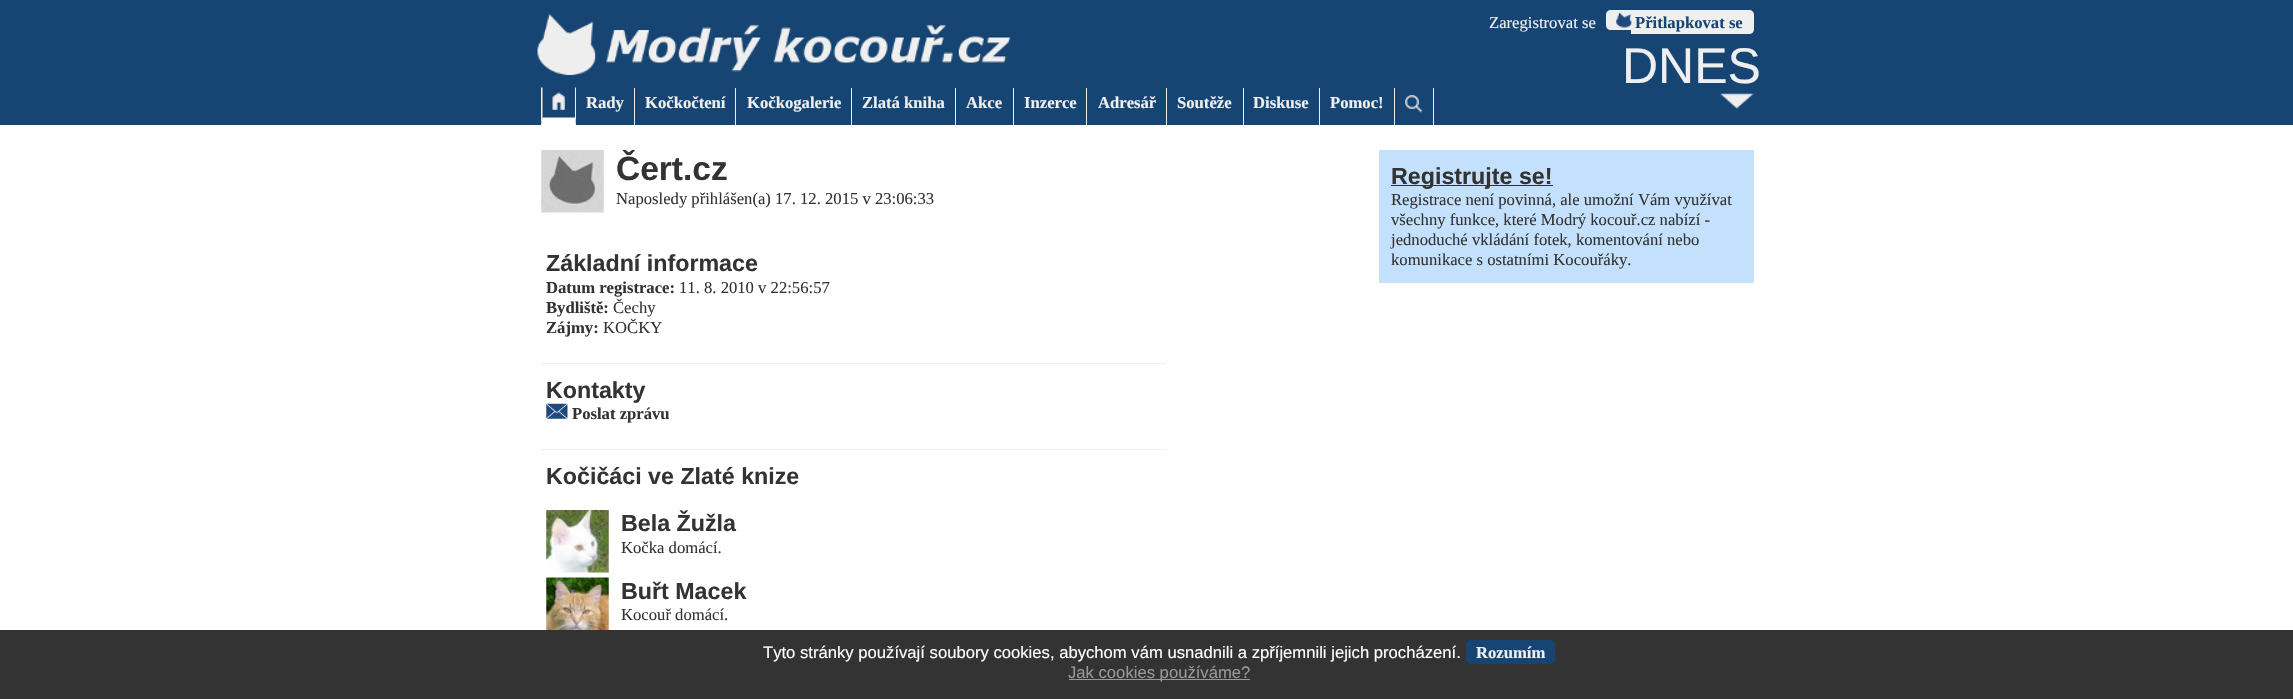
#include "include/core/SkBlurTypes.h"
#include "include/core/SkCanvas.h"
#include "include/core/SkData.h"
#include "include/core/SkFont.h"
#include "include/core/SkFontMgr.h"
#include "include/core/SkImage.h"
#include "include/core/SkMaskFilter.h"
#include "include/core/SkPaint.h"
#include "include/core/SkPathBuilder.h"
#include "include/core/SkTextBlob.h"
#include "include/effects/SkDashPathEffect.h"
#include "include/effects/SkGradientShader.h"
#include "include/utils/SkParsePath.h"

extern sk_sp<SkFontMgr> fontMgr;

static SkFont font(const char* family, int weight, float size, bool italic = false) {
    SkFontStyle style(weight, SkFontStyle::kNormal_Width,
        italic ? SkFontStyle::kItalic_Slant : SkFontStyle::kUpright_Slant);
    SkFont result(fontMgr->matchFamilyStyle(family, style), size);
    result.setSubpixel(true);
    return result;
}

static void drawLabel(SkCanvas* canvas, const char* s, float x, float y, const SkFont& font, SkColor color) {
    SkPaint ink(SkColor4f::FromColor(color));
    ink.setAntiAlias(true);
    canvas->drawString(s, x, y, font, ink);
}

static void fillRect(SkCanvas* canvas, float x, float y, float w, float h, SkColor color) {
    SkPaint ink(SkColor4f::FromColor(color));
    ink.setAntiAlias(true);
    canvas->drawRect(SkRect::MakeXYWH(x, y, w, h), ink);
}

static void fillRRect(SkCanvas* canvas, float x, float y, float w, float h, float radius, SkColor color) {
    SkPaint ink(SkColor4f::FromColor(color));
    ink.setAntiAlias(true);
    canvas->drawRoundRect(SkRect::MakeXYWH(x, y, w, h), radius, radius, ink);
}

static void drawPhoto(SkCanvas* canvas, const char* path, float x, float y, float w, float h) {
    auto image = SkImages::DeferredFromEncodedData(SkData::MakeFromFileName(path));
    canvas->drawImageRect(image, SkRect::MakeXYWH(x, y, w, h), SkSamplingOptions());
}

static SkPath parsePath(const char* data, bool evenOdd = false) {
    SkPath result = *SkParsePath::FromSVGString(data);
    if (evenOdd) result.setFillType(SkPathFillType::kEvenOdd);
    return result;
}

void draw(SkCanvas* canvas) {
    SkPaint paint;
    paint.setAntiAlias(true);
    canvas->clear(0xFF174573);
    drawPhoto(canvas, "assets/img1.png", 536, 13, 475, 64);
    SkFont font1 = font("Liberation Serif", 400, 16.65f);
    drawLabel(canvas, "Zaregistrovat se", 1489, 28, font1, 0xFFEFEFEF);
    paint.setColor(0xFFEFEFEF);
    canvas->drawPath(parsePath("M1611 10H1631V30H1611C1608 30 1606 28 1606 25V15C1606 12 1608 10 1611 10Z"), paint);
    canvas->drawPath(parsePath("M1631 10H1749C1752 10 1754 12 1754 15V29C1754 32 1752 34 1749 34H1631Z"), paint);
    drawPhoto(canvas, "assets/img2.png", 1616, 12, 16, 16);
    SkFont font2 = font("Liberation Serif", 700, 16.65f);
    drawLabel(canvas, "Přitlapkovat se", 1635, 28, font2, 0xFF174573);
    SkFont font3 = font("Liberation Sans", 400, 50);
    drawLabel(canvas, "DNES", 1622, 83, font3, 0xFFEFEFEF);
    drawPhoto(canvas, "assets/img3.png", 1720, 93, 34, 16);
    canvas->drawPath(parsePath("M576 87.5V125L575 117.5V87.5Z"), paint);
    paint.setColor(0xFFFFFFFF);
    canvas->drawPath(parsePath("M576 125H541L542.5 117.5H575Z"), paint);
    paint.setColor(0xFFEFEFEF);
    canvas->drawPath(parsePath("M541 125V87.5H542.5V117.5Z"), paint);
    drawPhoto(canvas, "assets/img4.png", 552, 92, 13, 18);
    fillRect(canvas, 634, 88, 1, 37, 0xFFEFEFEF);
    drawLabel(canvas, "Rady", 586, 108, font2, 0xFFEFEFEF);
    fillRect(canvas, 735, 88, 1, 37, 0xFFEFEFEF);
    drawLabel(canvas, "Kočkočtení", 645, 108, font2, 0xFFEFEFEF);
    fillRect(canvas, 851, 88, 1, 37, 0xFFEFEFEF);
    drawLabel(canvas, "Kočkogalerie", 747, 108, font2, 0xFFEFEFEF);
    fillRect(canvas, 955, 88, 1, 37, 0xFFEFEFEF);
    drawLabel(canvas, "Zlatá kniha", 862, 108, font2, 0xFFEFEFEF);
    fillRect(canvas, 1013, 88, 1, 37, 0xFFEFEFEF);
    drawLabel(canvas, "Akce", 966, 108, font2, 0xFFEFEFEF);
    fillRect(canvas, 1086, 88, 1, 37, 0xFFEFEFEF);
    drawLabel(canvas, "Inzerce", 1024, 108, font2, 0xFFEFEFEF);
    fillRect(canvas, 1166, 88, 1, 37, 0xFFEFEFEF);
    drawLabel(canvas, "Adresář", 1098, 108, font2, 0xFFEFEFEF);
    fillRect(canvas, 1243, 88, 1, 37, 0xFFEFEFEF);
    drawLabel(canvas, "Soutěže", 1177, 108, font2, 0xFFEFEFEF);
    fillRect(canvas, 1319, 88, 1, 37, 0xFFEFEFEF);
    drawLabel(canvas, "Diskuse", 1253, 108, font2, 0xFFEFEFEF);
    fillRect(canvas, 1394, 88, 1, 37, 0xFFEFEFEF);
    drawLabel(canvas, "Pomoc!", 1330, 108, font2, 0xFFEFEFEF);
    fillRect(canvas, 1433, 88, 1, 37, 0xFFEFEFEF);
    drawPhoto(canvas, "assets/img5.png", 1405, 95, 18, 18);
    fillRect(canvas, 0, 125, 2293, 505, 0xFFFFFFFF);
    drawPhoto(canvas, "assets/img6.png", 541, 150, 63, 63);
    SkFont font4 = font("Liberation Sans", 700, 33.5f);
    drawLabel(canvas, "Čert.cz", 616, 180, font4, 0xFF333333);
    drawLabel(canvas, "Naposledy přihlášen(a) 17. 12. 2015 v 23:06:33", 616, 204, font1, 0xFF333333);
    fillRect(canvas, 541, 363, 625, 1, 0xFFEFEFEF);
    SkFont font5 = font("Liberation Sans", 700, 23.25f);
    drawLabel(canvas, "Základní informace", 546, 271, font5, 0xFF333333);
    drawLabel(canvas, "Datum registrace:", 546, 293, font2, 0xFF333333);
    drawLabel(canvas, "11. 8. 2010 v 22:56:57", 679, 293, font1, 0xFF333333);
    drawLabel(canvas, "Bydliště:", 546, 313, font2, 0xFF333333);
    drawLabel(canvas, "Čechy", 613, 313, font1, 0xFF333333);
    drawLabel(canvas, "Zájmy:", 546, 333, font2, 0xFF333333);
    drawLabel(canvas, "KOČKY", 603, 333, font1, 0xFF333333);
    fillRect(canvas, 541, 449, 625, 1, 0xFFEFEFEF);
    drawLabel(canvas, "Kontakty", 546, 398, font5, 0xFF333333);
    drawPhoto(canvas, "assets/img7.png", 546, 403, 22, 16);
    drawLabel(canvas, "Poslat zprávu", 572, 419, font2, 0xFF333333);
    drawLabel(canvas, "Kočičáci ve Zlaté knize", 546, 484, font5, 0xFF333333);
    drawPhoto(canvas, "assets/img8.png", 546, 510, 63, 63);
    drawLabel(canvas, "Bela Žužla", 621, 531, font5, 0xFF333333);
    drawLabel(canvas, "Kočka domácí.", 621, 553, font1, 0xFF333333);
    drawPhoto(canvas, "assets/img9.png", 546, 577, 63, 53);
    drawLabel(canvas, "Buřt Macek", 621, 599, font5, 0xFF333333);
    drawLabel(canvas, "Kocouř domácí.", 621, 620, font1, 0xFF333333);
    fillRect(canvas, 1379, 150, 375, 133, 0xFFC3E0FD);
    fillRect(canvas, 1391, 185, 162, 1, 0xFF333333);
    drawLabel(canvas, "Registrujte se!", 1391, 184, font5, 0xFF333333);
    drawLabel(canvas, "Registrace není povinná, ale umožní Vám využívat", 1391, 205, font1, 0xFF333333);
    drawLabel(canvas, "všechny funkce, které Modrý kocouř.cz nabízí -", 1391, 225, font1, 0xFF333333);
    drawLabel(canvas, "jednoduché vkládání fotek, komentování nebo", 1391, 245, font1, 0xFF333333);
    drawLabel(canvas, "komunikace s ostatními Kocouřáky.", 1391, 265, font1, 0xFF333333);
    fillRect(canvas, 0, 630, 2293, 69, 0xFF333333);
    SkFont font6 = font("Liberation Sans", 400, 16.65f);
    drawLabel(canvas, "Tyto stránky používají soubory cookies, abychom vám usnadnili a zpříjemnili jejich procházení.", 763, 658, font6, 0xFFFFFFFF);
    fillRRect(canvas, 1466, 640, 89, 24, 5, 0xFF174573);
    drawLabel(canvas, "Rozumím", 1476, 658, font2, 0xFFEFEFEF);
    fillRect(canvas, 1069, 679, 181, 1, 0xFF999999);
    drawLabel(canvas, "Jak cookies používáme?", 1068, 678, font6, 0xFF999999);
}
